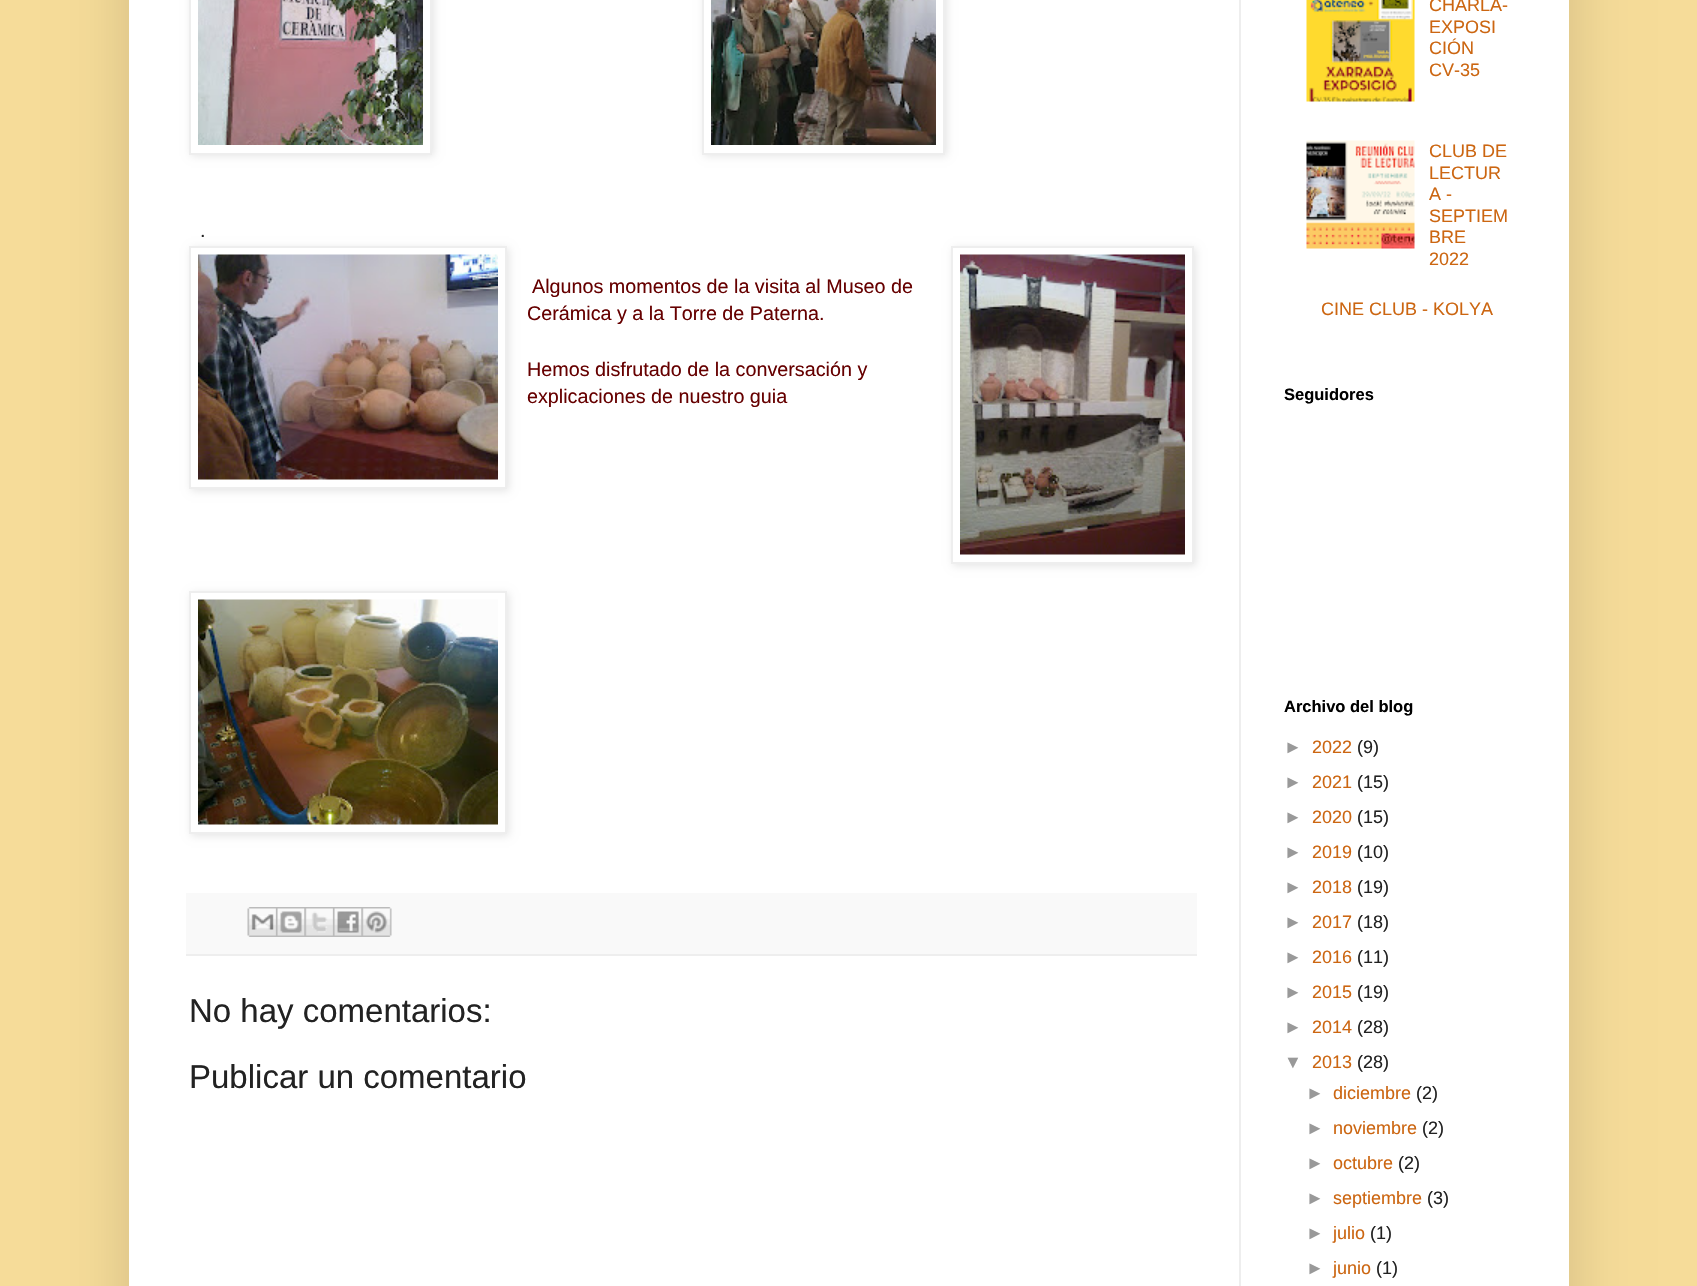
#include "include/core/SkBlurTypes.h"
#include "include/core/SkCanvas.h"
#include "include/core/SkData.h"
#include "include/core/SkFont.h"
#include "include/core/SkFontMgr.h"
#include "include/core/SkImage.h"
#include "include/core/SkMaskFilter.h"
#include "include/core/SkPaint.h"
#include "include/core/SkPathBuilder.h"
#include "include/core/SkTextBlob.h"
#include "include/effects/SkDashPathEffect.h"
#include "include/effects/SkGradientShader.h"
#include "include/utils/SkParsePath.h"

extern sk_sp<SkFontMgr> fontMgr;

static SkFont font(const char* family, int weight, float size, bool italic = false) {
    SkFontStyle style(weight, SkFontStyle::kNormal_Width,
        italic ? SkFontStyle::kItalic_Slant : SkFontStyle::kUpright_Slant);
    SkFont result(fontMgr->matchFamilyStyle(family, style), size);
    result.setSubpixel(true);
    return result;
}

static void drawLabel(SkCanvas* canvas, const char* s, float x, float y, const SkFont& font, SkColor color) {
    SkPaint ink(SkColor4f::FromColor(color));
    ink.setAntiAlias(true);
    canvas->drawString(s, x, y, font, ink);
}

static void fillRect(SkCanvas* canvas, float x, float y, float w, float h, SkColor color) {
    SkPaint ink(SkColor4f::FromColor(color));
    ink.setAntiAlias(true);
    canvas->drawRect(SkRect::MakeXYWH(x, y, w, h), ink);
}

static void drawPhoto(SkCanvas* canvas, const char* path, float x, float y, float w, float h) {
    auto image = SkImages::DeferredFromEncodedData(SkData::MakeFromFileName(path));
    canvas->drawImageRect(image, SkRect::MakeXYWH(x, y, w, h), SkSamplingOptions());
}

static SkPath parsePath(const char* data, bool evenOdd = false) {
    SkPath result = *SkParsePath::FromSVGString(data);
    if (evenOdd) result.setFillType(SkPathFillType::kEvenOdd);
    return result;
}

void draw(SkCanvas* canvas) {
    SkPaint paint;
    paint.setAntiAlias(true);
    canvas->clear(0xFFF6DC99);
    paint.setColor(0x26000000);
    paint.setMaskFilter(SkMaskFilter::MakeBlur(kNormal_SkBlurStyle, 30));
    canvas->drawRect(SkRect::MakeXYWH(129, -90, 1440, 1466), paint);
    paint.setMaskFilter(nullptr);
    fillRect(canvas, 129, 0, 1440, 1286, 0xFFFFFFFF);
    paint.setColor(0x1A000000);
    paint.setMaskFilter(SkMaskFilter::MakeBlur(kNormal_SkBlurStyle, 4));
    canvas->drawRect(SkRect::MakeXYWH(191, -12, 243, 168), paint);
    paint.setMaskFilter(nullptr);
    paint.setColor(0xFFFFFFFF);
    canvas->drawRect(SkRect::MakeXYWH(190, -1, 241, 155), paint);
    paint.setStroke(true);
    paint.setStrokeWidth(2);
    paint.setColor(0xFFEEEEEE);
    canvas->drawRect(SkRect::MakeXYWH(190, -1, 241, 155), paint);
    drawPhoto(canvas, "assets/img1.png", 198, 0, 225, 145);
    paint.setStroke(false);
    paint.setColor(0x1A000000);
    paint.setMaskFilter(SkMaskFilter::MakeBlur(kNormal_SkBlurStyle, 4));
    canvas->drawRect(SkRect::MakeXYWH(704, -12, 243, 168), paint);
    paint.setMaskFilter(nullptr);
    paint.setColor(0xFFFFFFFF);
    canvas->drawRect(SkRect::MakeXYWH(703, -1, 241, 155), paint);
    paint.setStroke(true);
    paint.setColor(0xFFEEEEEE);
    canvas->drawRect(SkRect::MakeXYWH(703, -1, 241, 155), paint);
    drawPhoto(canvas, "assets/img2.png", 711, 0, 225, 145);
    SkFont font1 = font("Liberation Sans", 400, 19.75f);
    drawLabel(canvas, ".", 200, 237, font1, 0xFF222222);
    canvas->save();
    canvas->clipPath(parsePath("M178 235H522V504H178ZM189 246H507V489H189Z", true), true);
    paint.setStroke(false);
    paint.setColor(0x1A000000);
    paint.setMaskFilter(SkMaskFilter::MakeBlur(kNormal_SkBlurStyle, 4));
    canvas->drawRect(SkRect::MakeXYWH(191, 248, 318, 243), paint);
    paint.setMaskFilter(nullptr);
    canvas->restore();
    paint.setStroke(true);
    paint.setColor(0xFFEEEEEE);
    canvas->drawRect(SkRect::MakeXYWH(190, 247, 316, 241), paint);
    drawPhoto(canvas, "assets/img3.png", 198, 254, 300, 226);
    canvas->save();
    canvas->clipPath(parsePath("M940 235H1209V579H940ZM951 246H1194V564H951Z", true), true);
    paint.setStroke(false);
    paint.setColor(0x1A000000);
    paint.setMaskFilter(SkMaskFilter::MakeBlur(kNormal_SkBlurStyle, 4));
    canvas->drawRect(SkRect::MakeXYWH(953, 248, 243, 318), paint);
    paint.setMaskFilter(nullptr);
    canvas->restore();
    paint.setStroke(true);
    paint.setColor(0xFFEEEEEE);
    canvas->drawRect(SkRect::MakeXYWH(952, 247, 241, 316), paint);
    drawPhoto(canvas, "assets/img4.png", 960, 254, 225, 301);
    drawLabel(canvas, "Algunos momentos de la visita al Museo de", 532, 293, font1, 0xFF660000);
    drawLabel(canvas, "Cerámica y a la Torre de Paterna.", 527, 320, font1, 0xFF660000);
    drawLabel(canvas, "Hemos disfrutado de la conversación y", 527, 376, font1, 0xFF660000);
    drawLabel(canvas, "explicaciones de nuestro guia", 527, 403, font1, 0xFF660000);
    canvas->save();
    canvas->clipPath(parsePath("M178 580H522V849H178ZM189 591H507V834H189Z", true), true);
    paint.setStroke(false);
    paint.setColor(0x1A000000);
    paint.setMaskFilter(SkMaskFilter::MakeBlur(kNormal_SkBlurStyle, 4));
    canvas->drawRect(SkRect::MakeXYWH(191, 593, 318, 243), paint);
    paint.setMaskFilter(nullptr);
    canvas->restore();
    paint.setStroke(true);
    paint.setColor(0xFFEEEEEE);
    canvas->drawRect(SkRect::MakeXYWH(190, 592, 316, 241), paint);
    drawPhoto(canvas, "assets/img5.png", 198, 599, 300, 226);
    fillRect(canvas, 186, 893, 1011, 61, 0xFFF9F9F9);
    fillRect(canvas, 186, 954, 1011, 2, 0xFFEEEEEE);
    drawPhoto(canvas, "assets/img6.png", 247, 907, 29, 30);
    drawPhoto(canvas, "assets/img7.png", 276, 907, 29, 30);
    drawPhoto(canvas, "assets/img8.png", 304, 907, 29, 30);
    drawPhoto(canvas, "assets/img9.png", 333, 907, 29, 30);
    drawPhoto(canvas, "assets/img10.png", 361, 907, 31, 30);
    SkFont font2 = font("Liberation Sans", 400, 33);
    drawLabel(canvas, "No hay comentarios:", 189, 1022, font2, 0xFF222222);
    drawLabel(canvas, "Publicar un comentario", 189, 1088, font2, 0xFF222222);
    drawPhoto(canvas, "assets/img11.png", 1306, 0, 109, 102);
    SkFont font3 = font("Liberation Sans", 400, 18);
    drawLabel(canvas, "CHARLA-", 1429, 11, font3, 0xFFCC6611);
    drawLabel(canvas, "EXPOSI", 1429, 33, font3, 0xFFCC6611);
    drawLabel(canvas, "CIÓN", 1429, 54, font3, 0xFFCC6611);
    drawLabel(canvas, "CV-35", 1429, 76, font3, 0xFFCC6611);
    drawPhoto(canvas, "assets/img12.png", 1306, 140, 109, 109);
    drawLabel(canvas, "CLUB DE", 1429, 157, font3, 0xFFCC6611);
    drawLabel(canvas, "LECTUR", 1429, 179, font3, 0xFFCC6611);
    drawLabel(canvas, "A -", 1429, 200, font3, 0xFFCC6611);
    drawLabel(canvas, "SEPTIEM", 1429, 222, font3, 0xFFCC6611);
    drawLabel(canvas, "BRE", 1429, 243, font3, 0xFFCC6611);
    drawLabel(canvas, "2022", 1429, 265, font3, 0xFFCC6611);
    drawLabel(canvas, "CINE CLUB - KOLYA", 1321, 315, font3, 0xFFCC6611);
    SkFont font4 = font("Liberation Sans", 700, 16.5f);
    drawLabel(canvas, "Seguidores", 1284, 400, font4, 0xFF000000);
    drawLabel(canvas, "Archivo del blog", 1284, 712, font4, 0xFF000000);
    drawLabel(canvas, "►", 1284, 753, font3, 0xFF999999);
    drawLabel(canvas, "2022", 1312, 753, font3, 0xFFCC6611);
    drawLabel(canvas, "(9)", 1357, 753, font3, 0xFF222222);
    drawLabel(canvas, "►", 1284, 788, font3, 0xFF999999);
    drawLabel(canvas, "2021", 1312, 788, font3, 0xFFCC6611);
    drawLabel(canvas, "(15)", 1357, 788, font3, 0xFF222222);
    drawLabel(canvas, "►", 1284, 823, font3, 0xFF999999);
    drawLabel(canvas, "2020", 1312, 823, font3, 0xFFCC6611);
    drawLabel(canvas, "(15)", 1357, 823, font3, 0xFF222222);
    drawLabel(canvas, "►", 1284, 858, font3, 0xFF999999);
    drawLabel(canvas, "2019", 1312, 858, font3, 0xFFCC6611);
    drawLabel(canvas, "(10)", 1357, 858, font3, 0xFF222222);
    drawLabel(canvas, "►", 1284, 893, font3, 0xFF999999);
    drawLabel(canvas, "2018", 1312, 893, font3, 0xFFCC6611);
    drawLabel(canvas, "(19)", 1357, 893, font3, 0xFF222222);
    drawLabel(canvas, "►", 1284, 928, font3, 0xFF999999);
    drawLabel(canvas, "2017", 1312, 928, font3, 0xFFCC6611);
    drawLabel(canvas, "(18)", 1357, 928, font3, 0xFF222222);
    drawLabel(canvas, "►", 1284, 963, font3, 0xFF999999);
    drawLabel(canvas, "2016", 1312, 963, font3, 0xFFCC6611);
    drawLabel(canvas, "(11)", 1357, 963, font3, 0xFF222222);
    drawLabel(canvas, "►", 1284, 998, font3, 0xFF999999);
    drawLabel(canvas, "2015", 1312, 998, font3, 0xFFCC6611);
    drawLabel(canvas, "(19)", 1357, 998, font3, 0xFF222222);
    drawLabel(canvas, "►", 1284, 1033, font3, 0xFF999999);
    drawLabel(canvas, "2014", 1312, 1033, font3, 0xFFCC6611);
    drawLabel(canvas, "(28)", 1357, 1033, font3, 0xFF222222);
    drawLabel(canvas, "▼", 1284, 1068, font3, 0xFF999999);
    drawLabel(canvas, "2013", 1312, 1068, font3, 0xFFCC6611);
    drawLabel(canvas, "(28)", 1357, 1068, font3, 0xFF222222);
    drawLabel(canvas, "►", 1306, 1099, font3, 0xFF999999);
    drawLabel(canvas, "diciembre", 1333, 1099, font3, 0xFFCC6611);
    drawLabel(canvas, "(2)", 1416, 1099, font3, 0xFF222222);
    drawLabel(canvas, "►", 1306, 1134, font3, 0xFF999999);
    drawLabel(canvas, "noviembre", 1333, 1134, font3, 0xFFCC6611);
    drawLabel(canvas, "(2)", 1422, 1134, font3, 0xFF222222);
    drawLabel(canvas, "►", 1306, 1169, font3, 0xFF999999);
    drawLabel(canvas, "octubre", 1333, 1169, font3, 0xFFCC6611);
    drawLabel(canvas, "(2)", 1398, 1169, font3, 0xFF222222);
    drawLabel(canvas, "►", 1306, 1204, font3, 0xFF999999);
    drawLabel(canvas, "septiembre", 1333, 1204, font3, 0xFFCC6611);
    drawLabel(canvas, "(3)", 1427, 1204, font3, 0xFF222222);
    drawLabel(canvas, "►", 1306, 1239, font3, 0xFF999999);
    drawLabel(canvas, "julio", 1333, 1239, font3, 0xFFCC6611);
    drawLabel(canvas, "(1)", 1370, 1239, font3, 0xFF222222);
    drawLabel(canvas, "►", 1306, 1274, font3, 0xFF999999);
    drawLabel(canvas, "junio", 1333, 1274, font3, 0xFFCC6611);
    drawLabel(canvas, "(1)", 1376, 1274, font3, 0xFF222222);
    fillRect(canvas, 1239, 0, 2, 1286, 0xFFEEEEEE);
}
